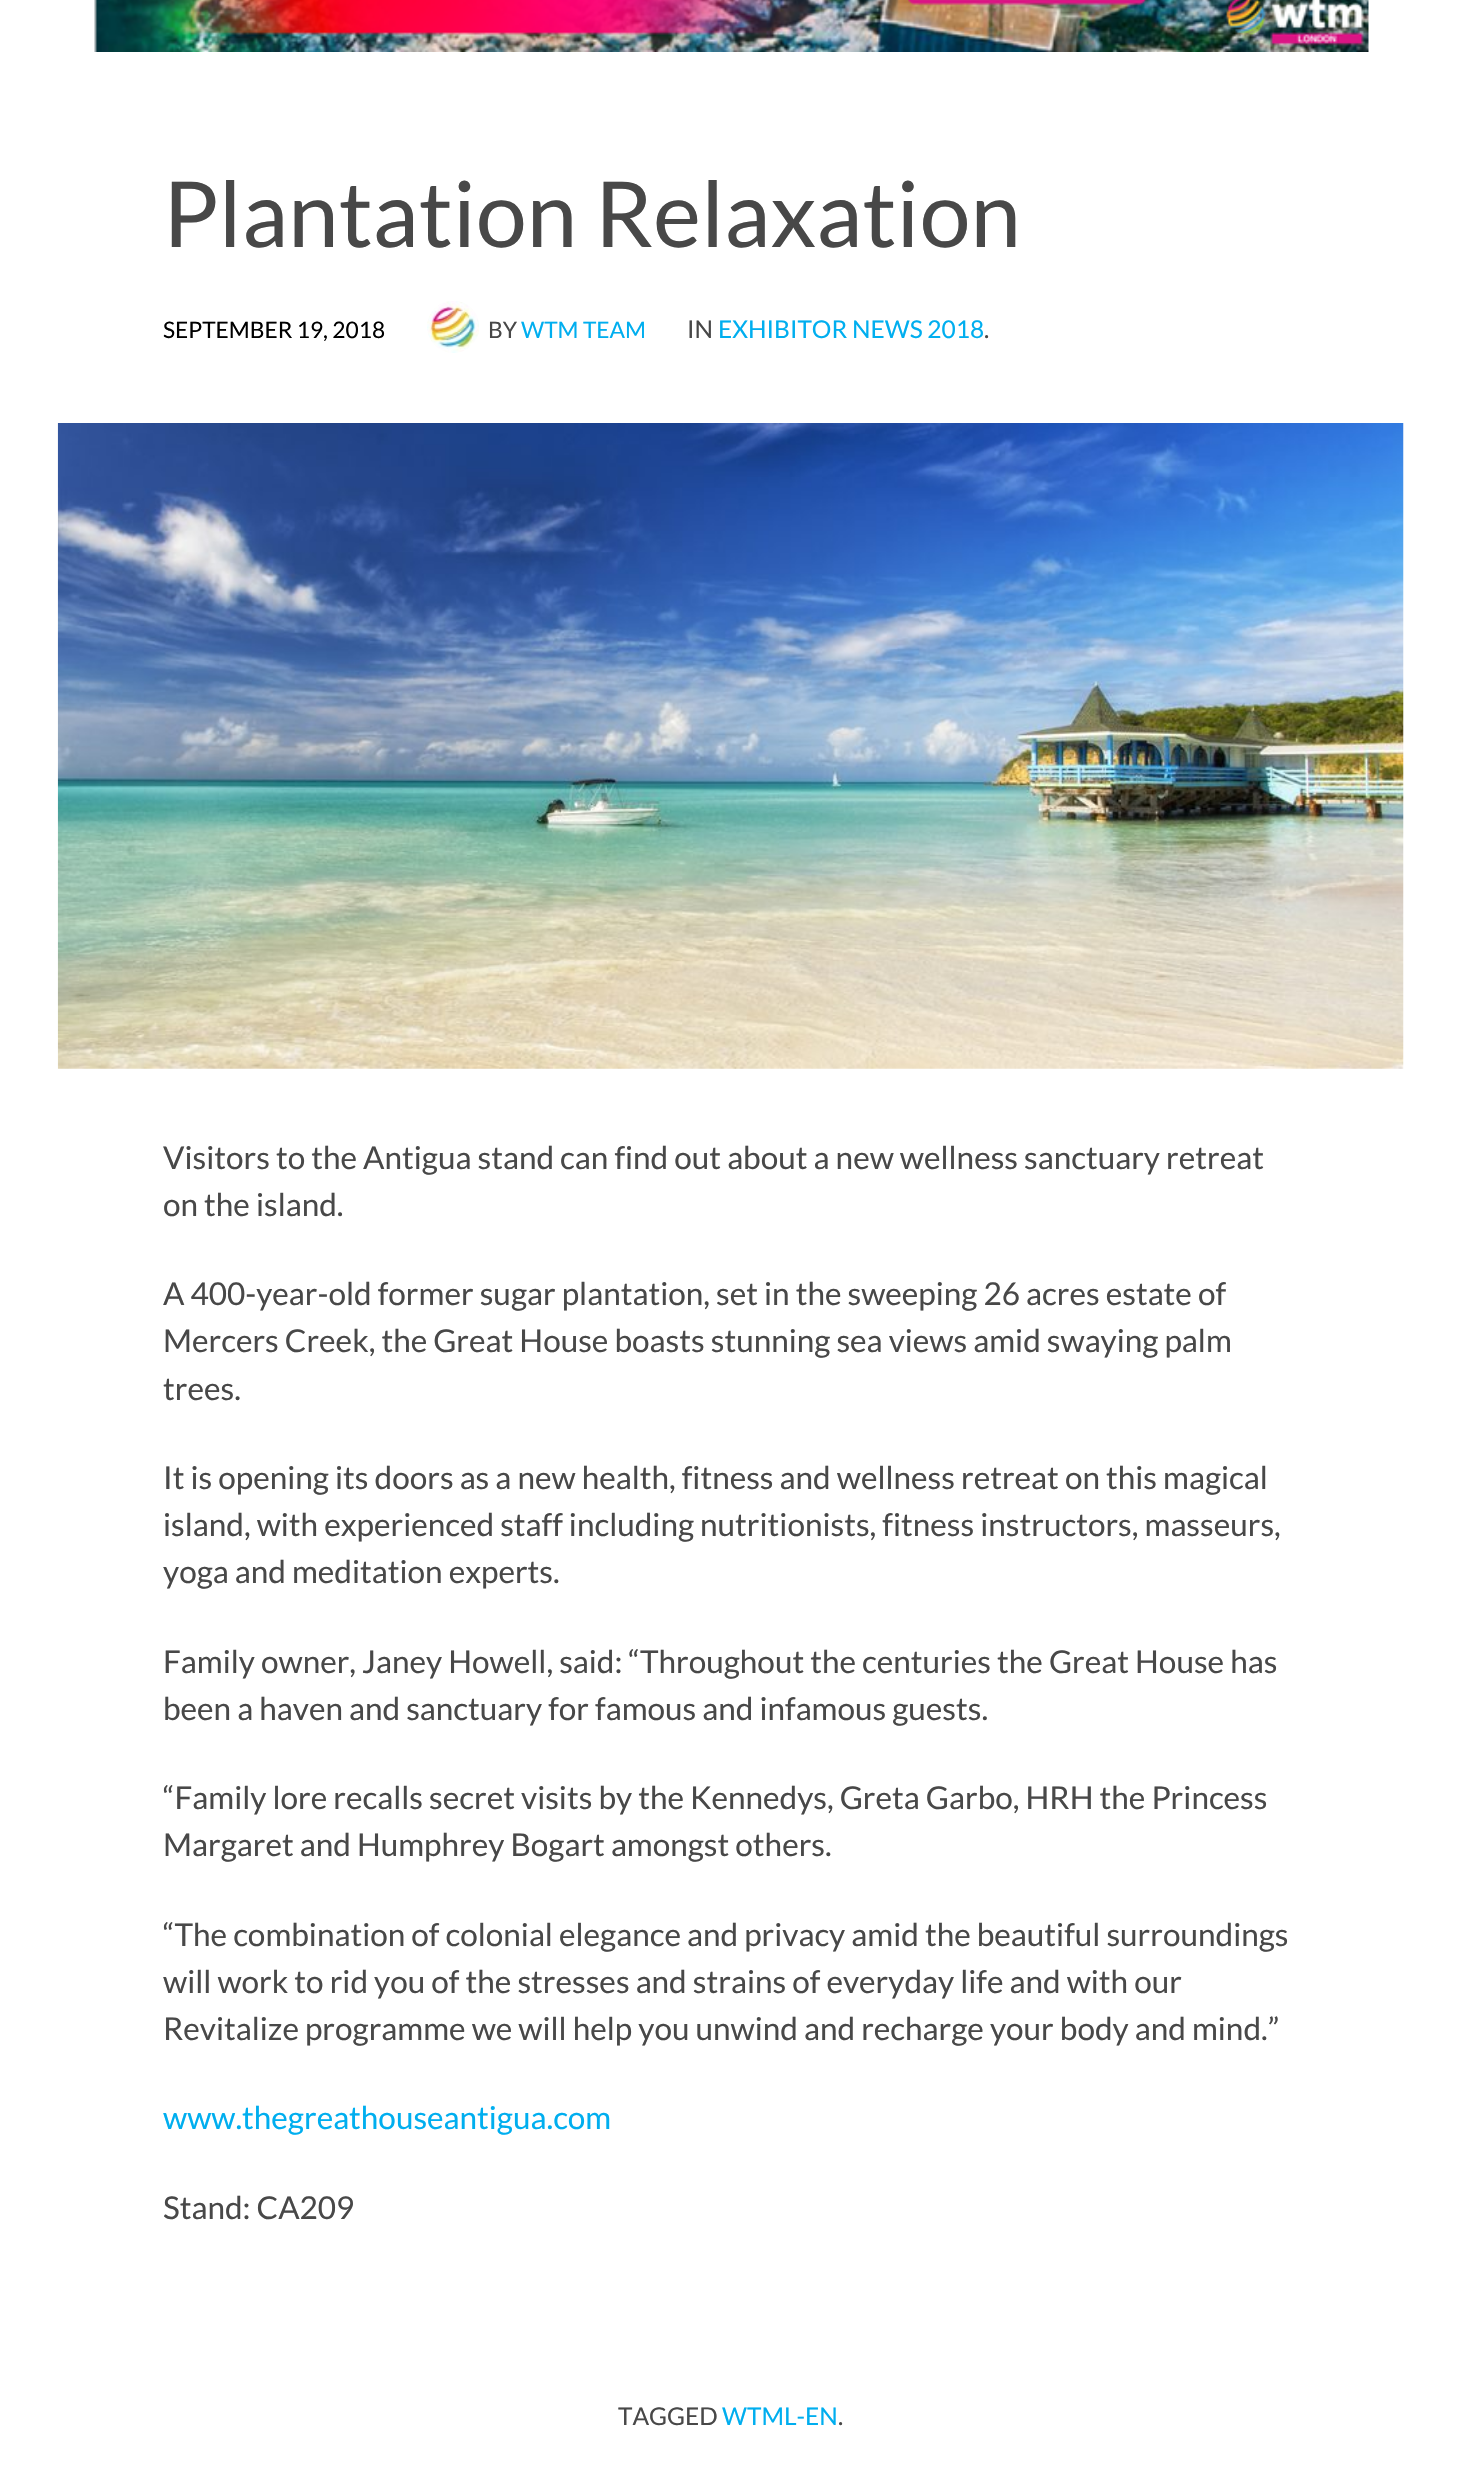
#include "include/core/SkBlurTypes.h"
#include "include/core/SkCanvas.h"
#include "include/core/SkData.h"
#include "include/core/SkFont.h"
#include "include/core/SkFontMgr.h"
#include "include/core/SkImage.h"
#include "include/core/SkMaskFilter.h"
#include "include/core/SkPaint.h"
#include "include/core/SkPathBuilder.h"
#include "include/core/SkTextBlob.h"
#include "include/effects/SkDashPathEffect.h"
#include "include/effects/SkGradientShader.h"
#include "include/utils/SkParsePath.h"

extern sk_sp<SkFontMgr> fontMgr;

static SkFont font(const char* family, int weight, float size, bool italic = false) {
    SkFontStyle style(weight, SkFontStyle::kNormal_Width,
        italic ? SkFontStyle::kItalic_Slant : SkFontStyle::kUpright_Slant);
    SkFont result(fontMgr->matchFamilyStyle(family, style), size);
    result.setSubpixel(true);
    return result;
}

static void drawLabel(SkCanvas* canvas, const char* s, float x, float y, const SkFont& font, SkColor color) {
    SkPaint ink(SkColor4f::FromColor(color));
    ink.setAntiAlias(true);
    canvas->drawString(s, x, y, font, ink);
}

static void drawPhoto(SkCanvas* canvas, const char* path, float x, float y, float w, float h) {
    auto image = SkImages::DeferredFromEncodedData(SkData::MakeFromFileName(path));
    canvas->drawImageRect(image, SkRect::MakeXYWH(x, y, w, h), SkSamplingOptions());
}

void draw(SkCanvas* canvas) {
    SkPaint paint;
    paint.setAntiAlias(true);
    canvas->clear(0xFFFFFFFF);
    drawPhoto(canvas, "assets/img1.png", 94, 0, 1275, 52);
    SkFont font1 = font("Lato", 400, 91);
    drawLabel(canvas, "Plantation Relaxation", 163, 247, font1, 0xFF484848);
    SkFont font2 = font("Lato", 400, 22.75f);
    drawLabel(canvas, "SEPTEMBER 19, 2018", 163, 338, font2, 0xFF000000);
    drawPhoto(canvas, "assets/img2.png", 427, 301, 52, 52);
    drawLabel(canvas, "BY", 488, 338, font2, 0xFF484848);
    drawLabel(canvas, "WTM TEAM", 521, 338, font2, 0xFF00AEEF);
    SkFont font3 = font("Lato", 400, 24.5f);
    drawLabel(canvas, "IN", 687, 338, font3, 0xFF484848);
    drawLabel(canvas, "EXHIBITOR NEWS 2018", 718, 338, font3, 0xFF00AEEF);
    drawLabel(canvas, ".", 984, 338, font3, 0xFF484848);
    drawPhoto(canvas, "assets/img3.png", 57, 423, 1347, 646);
    SkFont font4 = font("Lato", 400, 31.5f);
    drawLabel(canvas, "Visitors to the Antigua stand can find out about a new wellness sanctuary retreat", 163, 1169, font4, 0xFF484848);
    drawLabel(canvas, "on the island.", 163, 1216, font4, 0xFF484848);
    drawLabel(canvas, "A 400-year-old former sugar plantation, set in the sweeping 26 acres estate of", 163, 1305, font4, 0xFF484848);
    drawLabel(canvas, "Mercers Creek, the Great House boasts stunning sea views amid swaying palm", 163, 1352, font4, 0xFF484848);
    drawLabel(canvas, "trees.", 163, 1400, font4, 0xFF484848);
    drawLabel(canvas, "It is opening its doors as a new health, fitness and wellness retreat on this magical", 163, 1489, font4, 0xFF484848);
    drawLabel(canvas, "island, with experienced staff including nutritionists, fitness instructors, masseurs,", 163, 1536, font4, 0xFF484848);
    drawLabel(canvas, "yoga and meditation experts.", 163, 1583, font4, 0xFF484848);
    drawLabel(canvas, "Family owner, Janey Howell, said: “Throughout the centuries the Great House has", 163, 1673, font4, 0xFF484848);
    drawLabel(canvas, "been a haven and sanctuary for famous and infamous guests.", 163, 1720, font4, 0xFF484848);
    drawLabel(canvas, "“Family lore recalls secret visits by the Kennedys, Greta Garbo, HRH the Princess", 163, 1809, font4, 0xFF484848);
    drawLabel(canvas, "Margaret and Humphrey Bogart amongst others.", 163, 1856, font4, 0xFF484848);
    drawLabel(canvas, "“The combination of colonial elegance and privacy amid the beautiful surroundings", 163, 1946, font4, 0xFF484848);
    drawLabel(canvas, "will work to rid you of the stresses and strains of everyday life and with our", 163, 1993, font4, 0xFF484848);
    drawLabel(canvas, "Revitalize programme we will help you unwind and recharge your body and mind.”", 163, 2040, font4, 0xFF484848);
    drawLabel(canvas, "www.thegreathouseantigua.com", 163, 2129, font4, 0xFF00AEEF);
    drawLabel(canvas, "Stand: CA209", 163, 2219, font4, 0xFF484848);
    drawLabel(canvas, "TAGGED", 618, 2425, font3, 0xFF484848);
    drawLabel(canvas, "WTML-EN", 722, 2425, font3, 0xFF00AEEF);
    drawLabel(canvas, ".", 838, 2425, font3, 0xFF484848);
}
